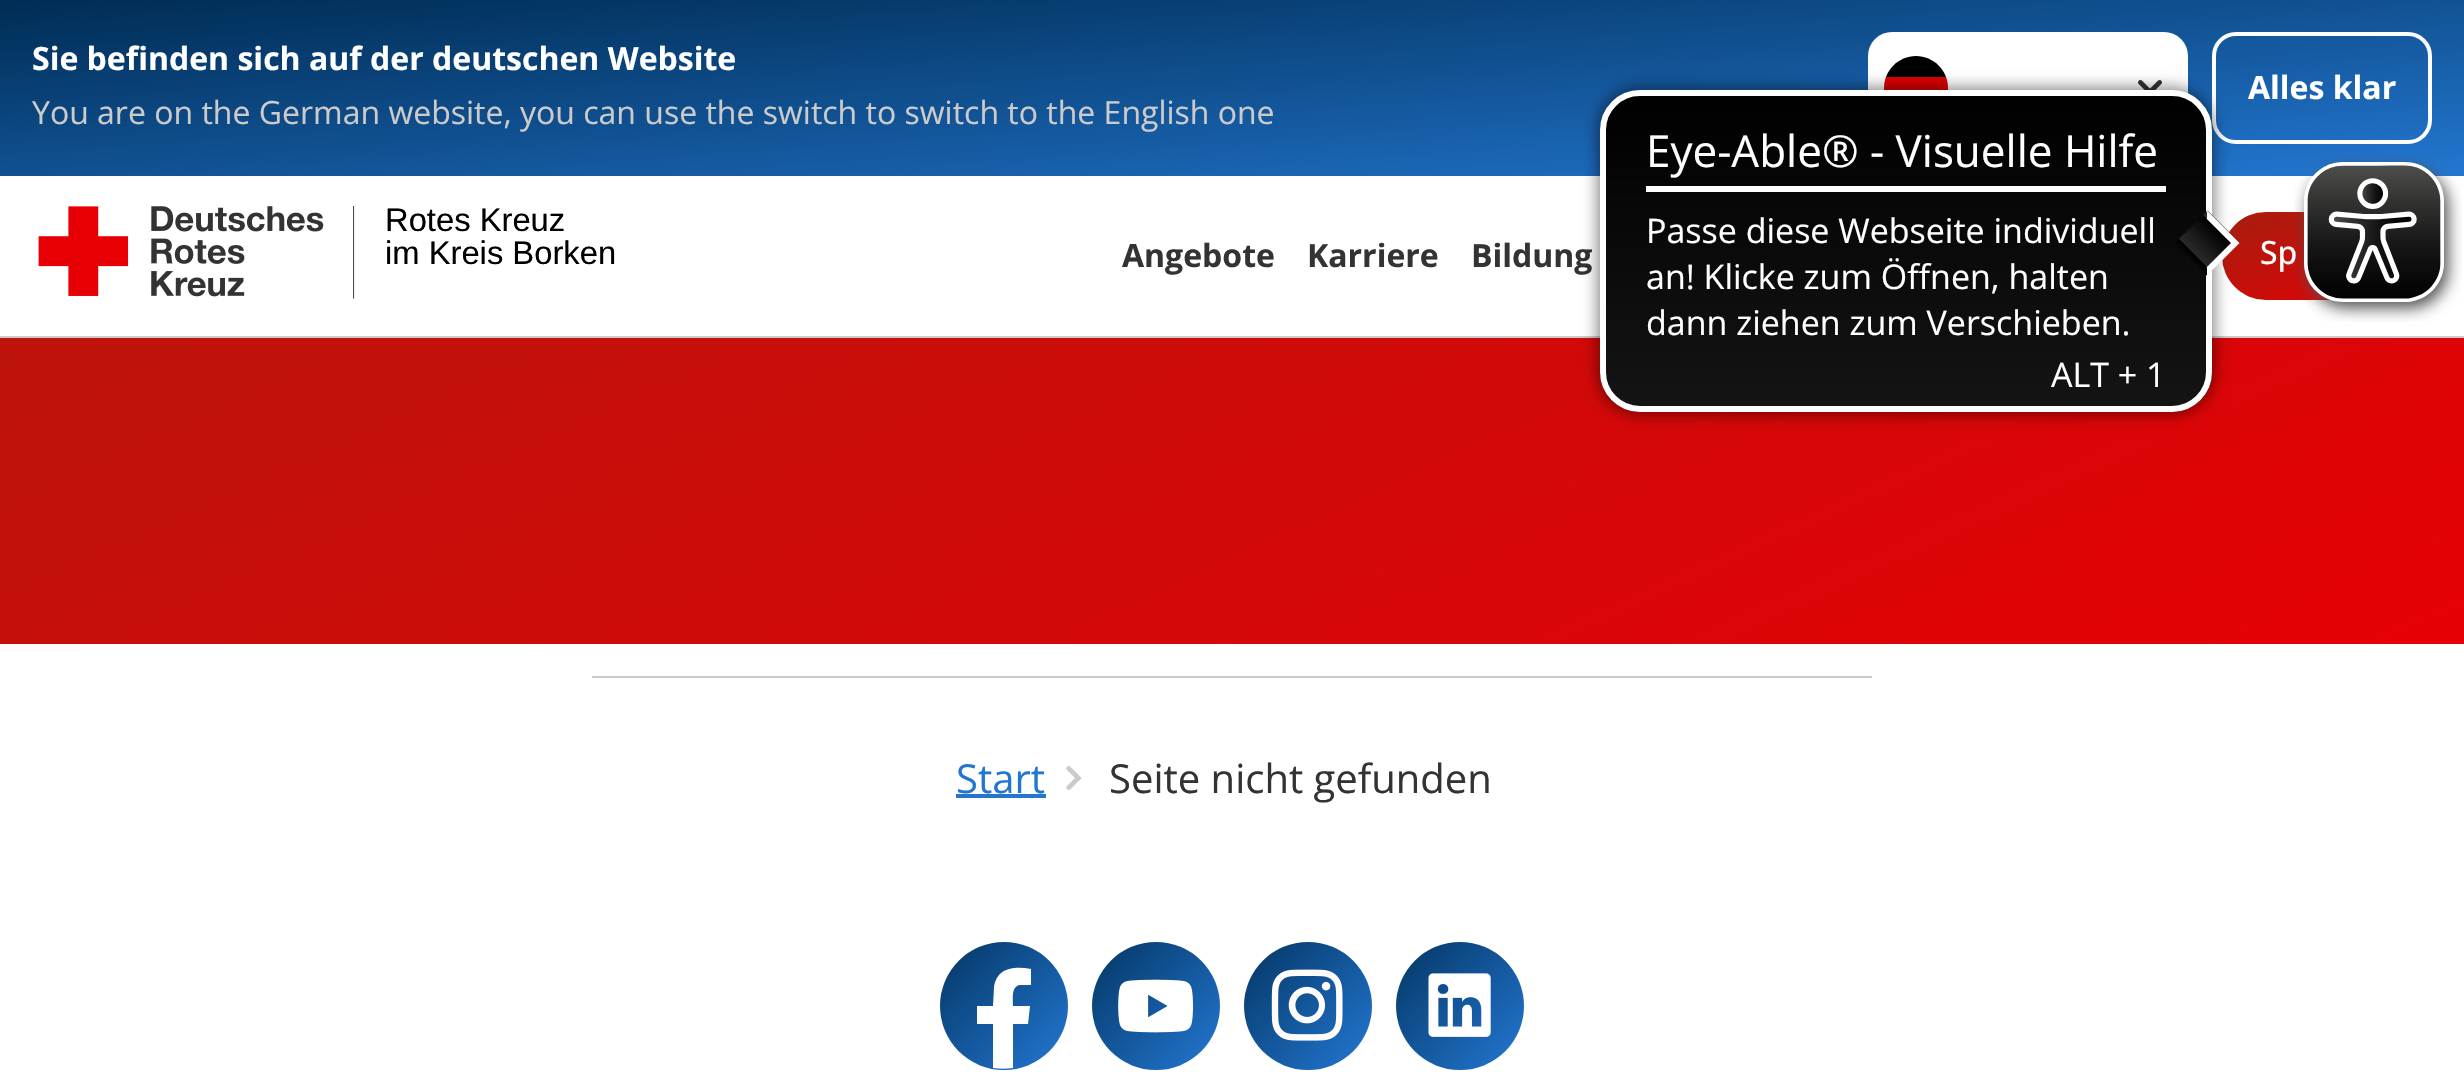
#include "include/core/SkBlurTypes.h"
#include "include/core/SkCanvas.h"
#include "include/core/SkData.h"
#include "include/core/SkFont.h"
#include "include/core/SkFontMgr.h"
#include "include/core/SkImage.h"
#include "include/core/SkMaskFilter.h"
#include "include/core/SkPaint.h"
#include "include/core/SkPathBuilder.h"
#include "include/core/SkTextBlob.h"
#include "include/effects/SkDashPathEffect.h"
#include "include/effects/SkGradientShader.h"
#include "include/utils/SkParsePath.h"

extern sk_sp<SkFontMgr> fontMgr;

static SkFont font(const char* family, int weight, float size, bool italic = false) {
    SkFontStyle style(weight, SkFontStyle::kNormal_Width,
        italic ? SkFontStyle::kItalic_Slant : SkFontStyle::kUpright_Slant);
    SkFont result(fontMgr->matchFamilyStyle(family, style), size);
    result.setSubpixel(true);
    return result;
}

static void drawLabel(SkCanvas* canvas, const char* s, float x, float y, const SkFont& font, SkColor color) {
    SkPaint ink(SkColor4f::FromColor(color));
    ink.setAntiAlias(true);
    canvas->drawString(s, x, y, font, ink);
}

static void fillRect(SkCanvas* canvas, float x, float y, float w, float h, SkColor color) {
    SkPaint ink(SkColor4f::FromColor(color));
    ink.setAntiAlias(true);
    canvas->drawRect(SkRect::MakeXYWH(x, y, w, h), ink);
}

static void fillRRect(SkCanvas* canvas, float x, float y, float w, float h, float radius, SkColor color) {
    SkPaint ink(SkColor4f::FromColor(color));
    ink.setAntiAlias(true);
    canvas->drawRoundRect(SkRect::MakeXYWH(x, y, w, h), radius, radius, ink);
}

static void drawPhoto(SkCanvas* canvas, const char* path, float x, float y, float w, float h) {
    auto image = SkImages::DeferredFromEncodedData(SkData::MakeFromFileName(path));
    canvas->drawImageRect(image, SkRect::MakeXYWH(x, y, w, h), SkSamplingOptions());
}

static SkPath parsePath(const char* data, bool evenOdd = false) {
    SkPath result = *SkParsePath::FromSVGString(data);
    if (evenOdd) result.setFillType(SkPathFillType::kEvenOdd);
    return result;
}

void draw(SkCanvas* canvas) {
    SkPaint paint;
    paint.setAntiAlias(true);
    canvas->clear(0xFFFFFFFF);
    {
        const SkColor colors[] = {0xFF002D55, 0xFF2276D0};
        const float stops[] = {0, 1};
        const SkPoint ends[] = {{1219, -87}, {1245, 263}};
        paint.setShader(SkGradientShader::MakeLinear(ends, colors, stops, 2, SkTileMode::kClamp));
        paint.setAlpha(255);
    }
    canvas->drawRect(SkRect::MakeXYWH(0, 0, 2464, 176), paint);
    SkFont font1 = font("Open Sans", 700, 32);
    drawLabel(canvas, "Sie befinden sich auf der deutschen Website", 32, 70, font1, 0xFFFFFFFF);
    SkFont font2 = font("Open Sans", 400, 32);
    drawLabel(canvas, "You are on the German website, you can use the switch to switch to the English one", 32, 124, font2, 0xFFCBCBCB);
    fillRRect(canvas, 1868, 32, 320, 112, 24, 0xFFFFFFFF);
    drawPhoto(canvas, "assets/img1.png", 2138, 80, 24, 10);
    canvas->save();
    canvas->clipPath(parsePath("M1916 56C1933.5 56 1948 70.5 1948 88C1948 105.5 1933.5 120 1916 120C1898.5 120 1884 105.5 1884 88C1884 70.5 1898.5 56 1916 56Z"), true);
    fillRect(canvas, 1886, 56, 60, 21, 0xFF000000);
    fillRect(canvas, 1884, 77, 64, 13, 0xFFDD0000);
    canvas->restore();
    paint.setStroke(true);
    paint.setStrokeWidth(4);
    paint.setShader(nullptr);
    paint.setColor(0xFFFFFFFF);
    canvas->drawRoundRect(SkRect::MakeXYWH(2214, 34, 216, 108), 22, 22, paint);
    drawLabel(canvas, "Alles klar", 2248, 99, font1, 0xFFFFFFFF);
    fillRect(canvas, 0, 336, 2464, 2, 0xFFCBCBCB);
    drawPhoto(canvas, "assets/img2.png", 38, 206, 317, 93);
    SkFont font3 = font("Liberation Sans", 400, 32.75f);
    drawLabel(canvas, "Rotes Kreuz", 385, 231, font3, 0xFF000000);
    drawLabel(canvas, "im Kreis Borken", 385, 264, font3, 0xFF000000);
    drawLabel(canvas, "Angebote", 1122, 267, font1, 0xFF333333);
    drawLabel(canvas, "Karriere", 1307, 267, font1, 0xFF333333);
    drawLabel(canvas, "Bildung", 1471, 267, font1, 0xFF333333);
    paint.setStroke(false);
    {
        const SkColor colors[] = {0xFFA51E0F, 0xFFE60005};
        const float stops[] = {0, 1};
        const SkPoint ends[] = {{2296, 181}, {2358, 331}};
        paint.setShader(SkGradientShader::MakeLinear(ends, colors, stops, 2, SkTileMode::kClamp));
        paint.setAlpha(255);
    }
    canvas->drawRoundRect(SkRect::MakeXYWH(2222, 212, 210, 88), 44, 44, paint);
    SkFont font4 = font("Open Sans", 500, 32);
    drawLabel(canvas, "Sp", 2260, 264, font4, 0xFFFFFFFF);
    {
        const SkColor colors[] = {0xFFA51E0F, 0xFFE60005};
        const float stops[] = {0, 1};
        const SkPoint ends[] = {{804, -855}, {1660, 1013}};
        paint.setShader(SkGradientShader::MakeLinear(ends, colors, stops, 2, SkTileMode::kClamp));
        paint.setAlpha(255);
    }
    canvas->drawRect(SkRect::MakeXYWH(0, 338, 2464, 306), paint);
    fillRect(canvas, 592, 676, 1280, 2, 0xFFCBCBCB);
    SkFont font5 = font("Open Sans", 400, 40);
    drawLabel(canvas, "Start", 956, 793, font5, 0xFF2276D0);
    fillRect(canvas, 956, 794, 90, 4, 0xFF2276D0);
    drawPhoto(canvas, "assets/img3.png", 1066, 766, 16, 24);
    drawLabel(canvas, "Seite nicht gefunden", 1109, 793, font5, 0xFF333333);
    {
        const SkColor colors[] = {0xFF002D55, 0xFF2276D0};
        const float stops[] = {0, 1};
        const SkPoint ends[] = {{924, 923}, {1069, 1061}};
        paint.setShader(SkGradientShader::MakeLinear(ends, colors, stops, 2, SkTileMode::kClamp));
        paint.setAlpha(255);
    }
    canvas->drawCircle(1004, 1006, 64, paint);
    paint.setShader(nullptr);
    paint.setColor(0xFFFFFFFF);
    canvas->drawPath(parsePath("M993 1068V1024H977V1006H993L994 987C997 967 1015 966 1031 969V985H1020C1011 986 1013 999 1013 1006H1030L1028 1024H1013V1068C1006 1069 1000 1069 993 1068ZM957 963C975 944 1003 938 1027 948C1003 938 975 944 957 963Z", true), paint);
    {
        const SkColor colors[] = {0xFF002D55, 0xFF2276D0};
        const float stops[] = {0, 1};
        const SkPoint ends[] = {{1076, 923}, {1221, 1061}};
        paint.setShader(SkGradientShader::MakeLinear(ends, colors, stops, 2, SkTileMode::kClamp));
        paint.setAlpha(255);
    }
    canvas->drawCircle(1156, 1006, 64, paint);
    drawPhoto(canvas, "assets/img4.png", 1118, 979, 76, 54);
    {
        const SkColor colors[] = {0xFF002D55, 0xFF2276D0};
        const float stops[] = {0, 1};
        const SkPoint ends[] = {{1228, 923}, {1373, 1061}};
        paint.setShader(SkGradientShader::MakeLinear(ends, colors, stops, 2, SkTileMode::kClamp));
        paint.setAlpha(255);
    }
    canvas->drawCircle(1308, 1006, 64, paint);
    drawPhoto(canvas, "assets/img5.png", 1271, 969, 72, 72);
    {
        const SkColor colors[] = {0xFF002D55, 0xFF2276D0};
        const float stops[] = {0, 1};
        const SkPoint ends[] = {{1380, 923}, {1525, 1061}};
        paint.setShader(SkGradientShader::MakeLinear(ends, colors, stops, 2, SkTileMode::kClamp));
        paint.setAlpha(255);
    }
    canvas->drawCircle(1460, 1006, 64, paint);
    drawPhoto(canvas, "assets/img6.png", 1428, 973, 63, 64);
    paint.setShader(nullptr);
    paint.setColor(0x80000000);
    paint.setMaskFilter(SkMaskFilter::MakeBlur(kNormal_SkBlurStyle, 8));
    canvas->drawRoundRect(SkRect::MakeXYWH(1598, 88, 616, 326), 42, 42, paint);
    paint.setMaskFilter(nullptr);
    canvas->save();
    canvas->clipPath(parsePath("M1640 90H2172C2194 90 2212 108 2212 130V372C2212 394 2194 412 2172 412H1640C1618 412 1600 394 1600 372V130C1600 108 1618 90 1640 90Z"), true);
    {
        const SkColor colors[] = {0xFF000000, 0xFF141414};
        const float stops[] = {0, 1};
        const SkPoint ends[] = {{1906, 95}, {1906, 405}};
        paint.setShader(SkGradientShader::MakeLinear(ends, colors, stops, 2, SkTileMode::kClamp));
        paint.setAlpha(255);
    }
    canvas->drawRect(SkRect::MakeXYWH(1600, 96, 612, 310), paint);
    canvas->restore();
    paint.setStroke(true);
    paint.setStrokeWidth(6);
    paint.setShader(nullptr);
    paint.setColor(0xFFFFFFFF);
    canvas->drawRoundRect(SkRect::MakeXYWH(1603, 93, 606, 316), 37, 37, paint);
    fillRect(canvas, 1646, 186, 520, 6, 0xFFFFFFFF);
    SkFont font6 = font("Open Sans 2", 400, 44);
    drawLabel(canvas, "Eye-Able® - Visuelle Hilfe", 1646, 167, font6, 0xFFFFFFFF);
    SkFont font7 = font("Open Sans 2", 400, 34);
    drawLabel(canvas, "Passe diese Webseite individuell", 1646, 243, font7, 0xFFFFFFFF);
    drawLabel(canvas, "an! Klicke zum Öffnen, halten", 1646, 289, font7, 0xFFFFFFFF);
    drawLabel(canvas, "dann ziehen zum Verschieben.", 1646, 335, font7, 0xFFFFFFFF);
    paint.setStroke(false);
    {
        const SkColor colors[] = {0xFF000000, 0xFF2B2B2B};
        const float stops[] = {0, 1};
        const SkPoint ends[] = {{2243, 207}, {2219, 231}};
        paint.setShader(SkGradientShader::MakeLinear(ends, colors, stops, 2, SkTileMode::kClamp));
        paint.setAlpha(255);
    }
    canvas->drawPath(parsePath("M2239.5 242.5L2235 247L2203 215L2207.5 210.5Z"), paint);
    {
        const SkColor colors[] = {0xFF000000, 0xFF2B2B2B};
        const float stops[] = {0, 1};
        const SkPoint ends[] = {{2219, 231}, {2195, 255}};
        paint.setShader(SkGradientShader::MakeLinear(ends, colors, stops, 2, SkTileMode::kClamp));
        paint.setAlpha(255);
    }
    canvas->drawPath(parsePath("M2203 215L2235 247L2211 271L2179 239Z"), paint);
    {
        const SkColor colors[] = {0xFF000000, 0xFF2B2B2B};
        const float stops[] = {0, 1};
        const SkPoint ends[] = {{2195, 255}, {2171, 279}};
        paint.setShader(SkGradientShader::MakeLinear(ends, colors, stops, 2, SkTileMode::kClamp));
        paint.setAlpha(255);
    }
    canvas->drawPath(parsePath("M2179 239L2211 271L2206.5 275.5L2174.5 243.5Z"), paint);
    paint.setShader(nullptr);
    paint.setColor(0xFFFFFFFF);
    canvas->drawPath(parsePath("M2207 210.5L2239.5 243H2231L2207 219Z"), paint);
    canvas->drawPath(parsePath("M2239.5 243L2207 275.5V267L2231 243Z"), paint);
    drawLabel(canvas, "ALT + 1", 2051, 387, font7, 0xFFFFFFFF);
    drawPhoto(canvas, "assets/img7.png", 2294, 154, 168, 168);
}
